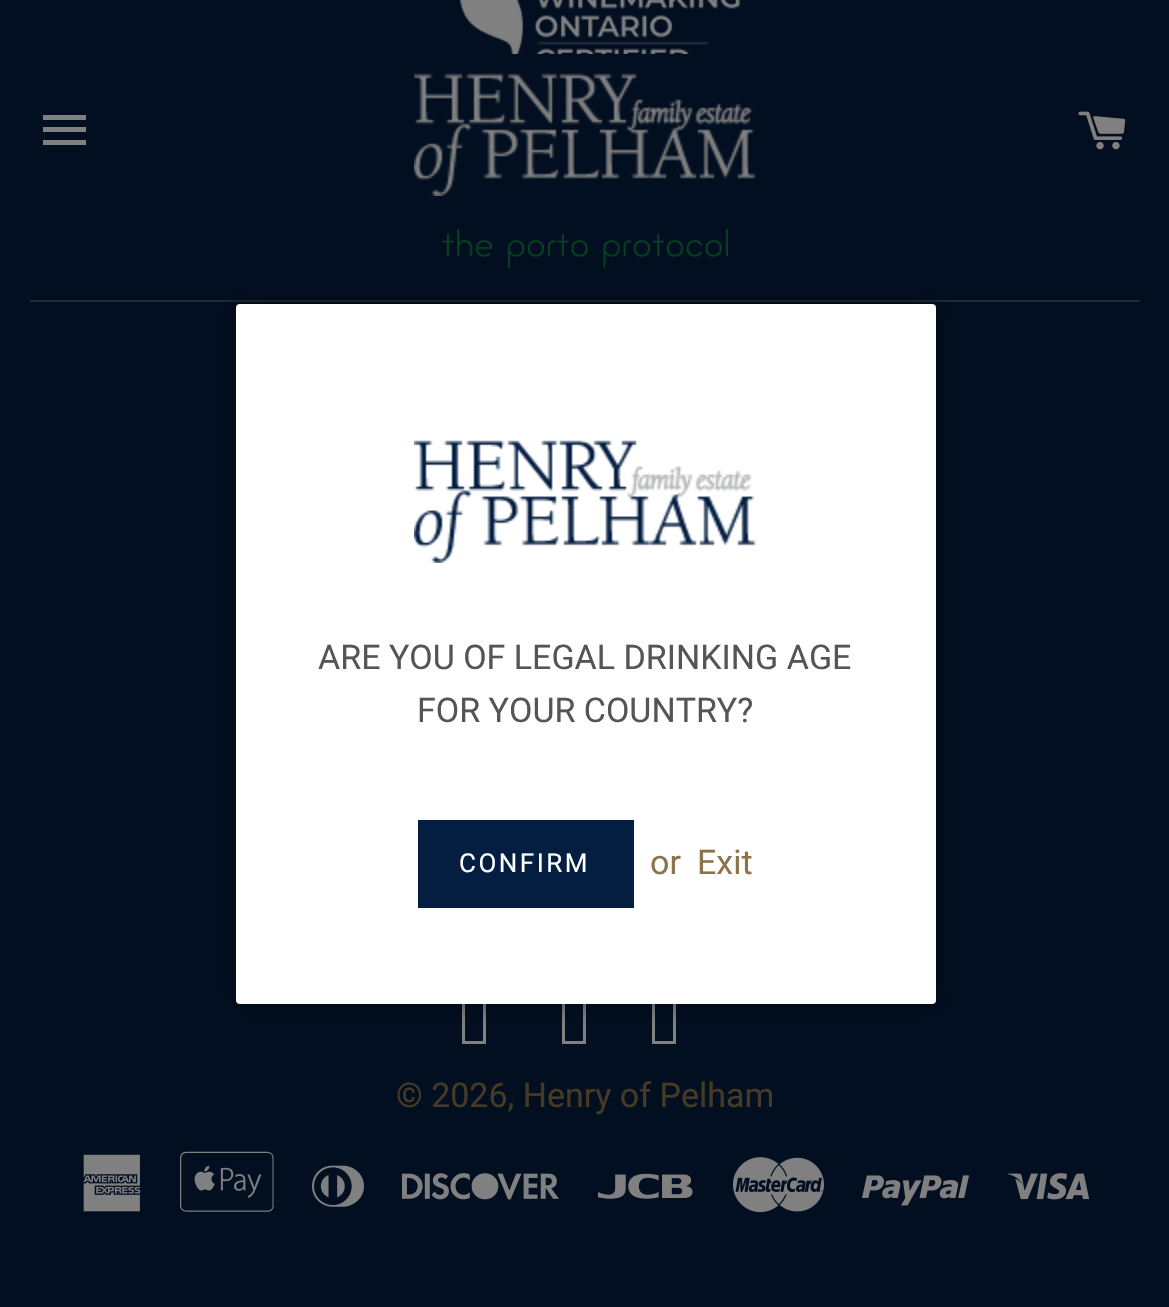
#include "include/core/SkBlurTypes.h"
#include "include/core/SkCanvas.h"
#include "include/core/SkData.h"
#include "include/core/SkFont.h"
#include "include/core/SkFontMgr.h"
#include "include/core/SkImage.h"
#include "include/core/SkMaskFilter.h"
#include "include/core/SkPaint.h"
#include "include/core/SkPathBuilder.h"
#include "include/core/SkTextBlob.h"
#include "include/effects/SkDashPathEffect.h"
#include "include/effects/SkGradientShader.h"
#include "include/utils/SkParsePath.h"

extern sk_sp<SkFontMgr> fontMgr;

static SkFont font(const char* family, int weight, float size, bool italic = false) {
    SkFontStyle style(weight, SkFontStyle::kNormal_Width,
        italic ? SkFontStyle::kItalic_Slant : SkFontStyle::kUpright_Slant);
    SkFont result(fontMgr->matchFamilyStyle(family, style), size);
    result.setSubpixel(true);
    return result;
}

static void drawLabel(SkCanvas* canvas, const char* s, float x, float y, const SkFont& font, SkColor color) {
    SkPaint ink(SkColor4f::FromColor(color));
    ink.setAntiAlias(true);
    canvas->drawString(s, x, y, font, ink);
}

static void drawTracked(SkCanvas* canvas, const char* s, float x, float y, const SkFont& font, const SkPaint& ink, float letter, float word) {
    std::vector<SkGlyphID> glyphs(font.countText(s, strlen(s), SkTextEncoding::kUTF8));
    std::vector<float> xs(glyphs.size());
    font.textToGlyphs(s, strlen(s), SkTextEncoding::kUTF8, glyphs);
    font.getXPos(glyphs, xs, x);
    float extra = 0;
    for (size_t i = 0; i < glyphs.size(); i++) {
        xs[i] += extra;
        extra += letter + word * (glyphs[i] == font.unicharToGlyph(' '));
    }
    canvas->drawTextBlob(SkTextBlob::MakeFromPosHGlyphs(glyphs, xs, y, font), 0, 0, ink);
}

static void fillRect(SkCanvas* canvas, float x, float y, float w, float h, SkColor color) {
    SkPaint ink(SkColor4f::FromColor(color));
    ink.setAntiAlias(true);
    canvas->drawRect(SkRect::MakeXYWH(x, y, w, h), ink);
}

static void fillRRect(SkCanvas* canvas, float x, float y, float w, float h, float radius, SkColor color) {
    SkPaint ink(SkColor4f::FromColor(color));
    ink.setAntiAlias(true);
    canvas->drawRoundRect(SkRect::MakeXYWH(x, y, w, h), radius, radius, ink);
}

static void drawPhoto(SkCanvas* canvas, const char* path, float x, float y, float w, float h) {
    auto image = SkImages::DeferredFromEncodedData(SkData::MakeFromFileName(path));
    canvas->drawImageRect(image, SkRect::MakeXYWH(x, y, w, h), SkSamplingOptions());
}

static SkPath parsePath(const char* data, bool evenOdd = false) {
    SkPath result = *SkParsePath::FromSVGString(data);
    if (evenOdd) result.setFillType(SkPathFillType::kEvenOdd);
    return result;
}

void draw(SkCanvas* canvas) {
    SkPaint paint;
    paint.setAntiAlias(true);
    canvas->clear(0xFF020F21);
    fillRect(canvas, 30, 300, 1110, 2, 0xFF202936);
    paint.setColor(0xFF808080);
    canvas->drawPath(parsePath("M462 1044V1001H486V1044ZM465 1041H483V1004H465Z"), paint);
    canvas->drawPath(parsePath("M562 1044V1001H586V1044ZM565 1041H583V1004H565Z"), paint);
    canvas->drawPath(parsePath("M652 1044V1001H676V1044ZM655 1041H673V1004H655Z"), paint);
    paint.setColor(0x80000000);
    paint.setMaskFilter(SkMaskFilter::MakeBlur(kNormal_SkBlurStyle, 10));
    canvas->drawRoundRect(SkRect::MakeXYWH(236, 304, 700, 700), 4, 4, paint);
    paint.setMaskFilter(nullptr);
    fillRRect(canvas, 236, 304, 700, 700, 4, 0xFFFFFFFF);
    drawPhoto(canvas, "assets/img1.png", 414, 440, 342, 123);
    SkFont font1 = font("Roboto", 400, 34);
    drawLabel(canvas, "ARE YOU OF LEGAL DRINKING AGE", 318, 669, font1, 0xFF555555);
    drawLabel(canvas, "FOR YOUR COUNTRY?", 417, 722, font1, 0xFF555555);
    fillRect(canvas, 418, 820, 216, 88, 0xFF041E42);
    SkFont font2 = font("Roboto", 400, 26);
    paint.setColor(0xFFFFFFFF);
    drawTracked(canvas, "CONFIRM", 459, 872, font2, paint, 2.5f, 0);
    drawLabel(canvas, "or", 650, 874, font1, 0xFF8D734A);
    drawLabel(canvas, "Exit", 697, 874, font1, 0xFF8D734A);
    paint.setColor(0xFF808080);
    canvas->drawPath(parsePath("M43 115H86V120H43ZM43 127H86V132H43ZM43 140H86V145H43Z"), paint);
    drawPhoto(canvas, "assets/img2.png", 414, 73, 342, 123);
    drawPhoto(canvas, "assets/img3.png", 1078, 111, 48, 39);
    drawPhoto(canvas, "assets/img4.png", 459, 0, 281, 54);
    drawPhoto(canvas, "assets/img5.png", 442, 229, 286, 39);
    drawLabel(canvas, "© 2026, Henry of Pelham", 396, 1107, font1, 0xFF473A25);
    drawPhoto(canvas, "assets/img6.png", 83, 1154, 58, 58);
    drawPhoto(canvas, "assets/img7.png", 180, 1151, 94, 61);
    drawPhoto(canvas, "assets/img8.png", 312, 1165, 52, 42);
    drawPhoto(canvas, "assets/img9.png", 402, 1173, 157, 27);
    drawPhoto(canvas, "assets/img10.png", 598, 1173, 95, 26);
    drawPhoto(canvas, "assets/img11.png", 732, 1157, 92, 56);
    drawPhoto(canvas, "assets/img12.png", 862, 1175, 108, 31);
    drawPhoto(canvas, "assets/img13.png", 1008, 1173, 82, 27);
}
